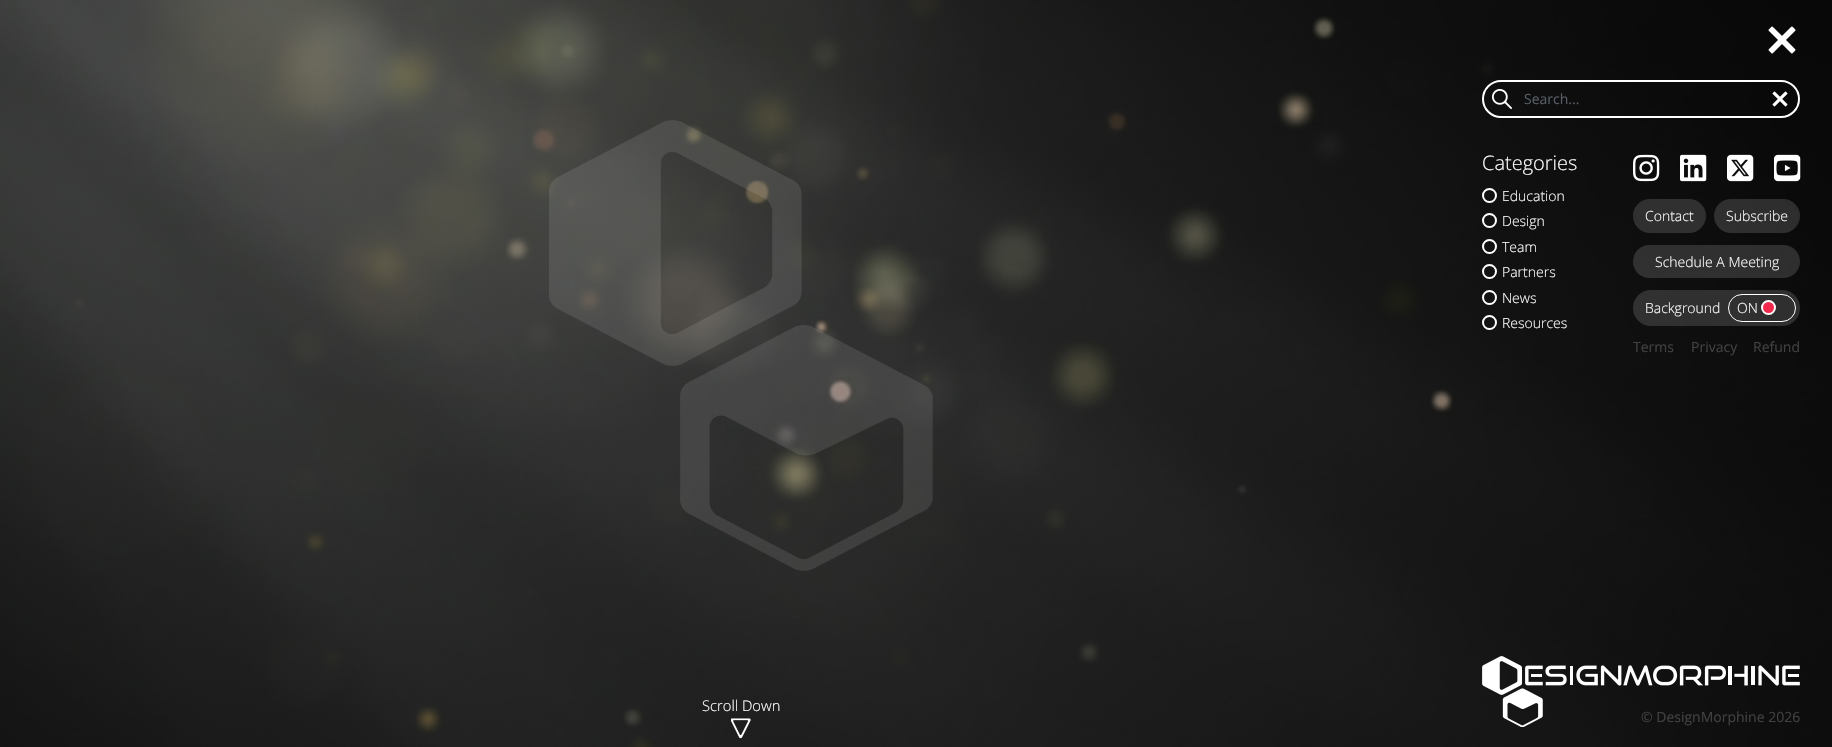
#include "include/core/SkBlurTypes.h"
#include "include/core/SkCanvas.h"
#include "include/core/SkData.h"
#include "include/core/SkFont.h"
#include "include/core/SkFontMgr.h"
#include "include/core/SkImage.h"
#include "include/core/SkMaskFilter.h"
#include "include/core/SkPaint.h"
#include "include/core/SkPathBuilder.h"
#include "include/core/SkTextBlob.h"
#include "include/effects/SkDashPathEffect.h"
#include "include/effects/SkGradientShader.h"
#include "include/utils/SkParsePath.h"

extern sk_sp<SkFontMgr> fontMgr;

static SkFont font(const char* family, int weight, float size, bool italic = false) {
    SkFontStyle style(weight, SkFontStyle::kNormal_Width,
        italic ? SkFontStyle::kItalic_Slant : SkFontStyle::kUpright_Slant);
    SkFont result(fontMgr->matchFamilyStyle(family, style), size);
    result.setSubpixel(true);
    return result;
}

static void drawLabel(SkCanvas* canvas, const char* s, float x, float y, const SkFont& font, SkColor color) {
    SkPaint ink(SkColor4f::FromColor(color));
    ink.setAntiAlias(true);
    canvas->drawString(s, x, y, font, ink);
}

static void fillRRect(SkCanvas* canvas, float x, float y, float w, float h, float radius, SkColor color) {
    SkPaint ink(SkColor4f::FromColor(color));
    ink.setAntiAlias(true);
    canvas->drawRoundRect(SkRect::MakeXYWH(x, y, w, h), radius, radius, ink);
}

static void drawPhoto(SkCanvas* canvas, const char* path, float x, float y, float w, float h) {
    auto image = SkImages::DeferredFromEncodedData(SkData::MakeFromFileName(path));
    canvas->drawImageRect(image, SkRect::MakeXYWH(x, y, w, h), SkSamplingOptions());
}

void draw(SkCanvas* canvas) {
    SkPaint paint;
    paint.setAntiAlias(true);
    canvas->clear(0xFFFFFFFF);
    drawPhoto(canvas, "assets/img1.png", 0, 0, 1832, 747);
    drawPhoto(canvas, "assets/img2.png", 549, 120, 384, 451);
    SkFont font1 = font("Open Sans", 300, 14.75f);
    drawLabel(canvas, "Scroll Down", 702, 711, font1, 0xFFFFFFFF);
    drawPhoto(canvas, "assets/img3.png", 731, 718, 20, 21);
    drawPhoto(canvas, "assets/img4.png", 1768, 26, 28, 28);
    paint.setStroke(true);
    paint.setStrokeWidth(2);
    paint.setColor(0xFFFFFFFF);
    canvas->drawRoundRect(SkRect::MakeXYWH(1483, 81, 316, 36), 18, 18, paint);
    drawPhoto(canvas, "assets/img5.png", 1492, 89, 20, 20);
    SkFont font2 = font("Open Sans", 400, 14);
    drawLabel(canvas, "Search...", 1524, 104, font2, 0xFF575E67);
    drawPhoto(canvas, "assets/img6.png", 1772, 91, 16, 16);
    SkFont font3 = font("Open Sans", 300, 20);
    drawLabel(canvas, "Categories", 1482, 170, font3, 0xFFFFFFFF);
    canvas->drawCircle(1489.5f, 195.5f, 6.5f, paint);
    SkFont font4 = font("Open Sans", 300, 14);
    drawLabel(canvas, "Education", 1502, 201, font4, 0xFFFFFFFF);
    canvas->drawCircle(1489.5f, 220.5f, 6.5f, paint);
    drawLabel(canvas, "Design", 1502, 226, font4, 0xFFFFFFFF);
    canvas->drawCircle(1489.5f, 246.5f, 6.5f, paint);
    drawLabel(canvas, "Team", 1502, 252, font4, 0xFFFFFFFF);
    canvas->drawCircle(1489.5f, 271.5f, 6.5f, paint);
    drawLabel(canvas, "Partners", 1502, 277, font4, 0xFFFFFFFF);
    canvas->drawCircle(1489.5f, 297.5f, 6.5f, paint);
    drawLabel(canvas, "News", 1502, 303, font4, 0xFFFFFFFF);
    canvas->drawCircle(1489.5f, 322.5f, 6.5f, paint);
    drawLabel(canvas, "Resources", 1502, 328, font4, 0xFFFFFFFF);
    drawPhoto(canvas, "assets/img7.png", 1633, 154, 27, 28);
    drawPhoto(canvas, "assets/img8.png", 1680, 154, 27, 28);
    drawPhoto(canvas, "assets/img9.png", 1727, 154, 27, 28);
    drawPhoto(canvas, "assets/img10.png", 1774, 154, 27, 28);
    fillRRect(canvas, 1633, 199, 73, 34, 17, 0x24FFFFFF);
    drawLabel(canvas, "Contact", 1645, 221, font4, 0xFFFFFFFF);
    fillRRect(canvas, 1714, 199, 86, 34, 17, 0x24FFFFFF);
    drawLabel(canvas, "Subscribe", 1726, 221, font4, 0xFFFFFFFF);
    fillRRect(canvas, 1633, 245, 167, 33, 16.5f, 0x24FFFFFF);
    drawLabel(canvas, "Schedule A Meeting", 1655, 267, font4, 0xFFFFFFFF);
    fillRRect(canvas, 1633, 290, 167, 36, 18, 0x24FFFFFF);
    drawLabel(canvas, "Background", 1645, 313, font4, 0xFFFFFFFF);
    paint.setStrokeWidth(1);
    canvas->drawRoundRect(SkRect::MakeXYWH(1728.5f, 294.5f, 67, 27), 13.5f, 13.5f, paint);
    drawLabel(canvas, "ON", 1737, 313, font4, 0xFFFFFFFF);
    paint.setStroke(false);
    paint.setColor(0xFFF0284B);
    canvas->drawCircle(1768.5f, 307.5f, 6.5f, paint);
    paint.setStroke(true);
    paint.setStrokeWidth(2);
    paint.setColor(0xFFFFFFFF);
    canvas->drawCircle(1768.5f, 307.5f, 6.5f, paint);
    drawLabel(canvas, "Terms", 1633, 352, font2, 0xFF414141);
    drawLabel(canvas, "Privacy", 1691, 352, font2, 0xFF414141);
    drawLabel(canvas, "Refund", 1753, 352, font2, 0xFF414141);
    drawPhoto(canvas, "assets/img11.png", 1482, 656, 318, 71);
    drawLabel(canvas, "© DesignMorphine 2026", 1641, 722, font2, 0xFF414141);
}
